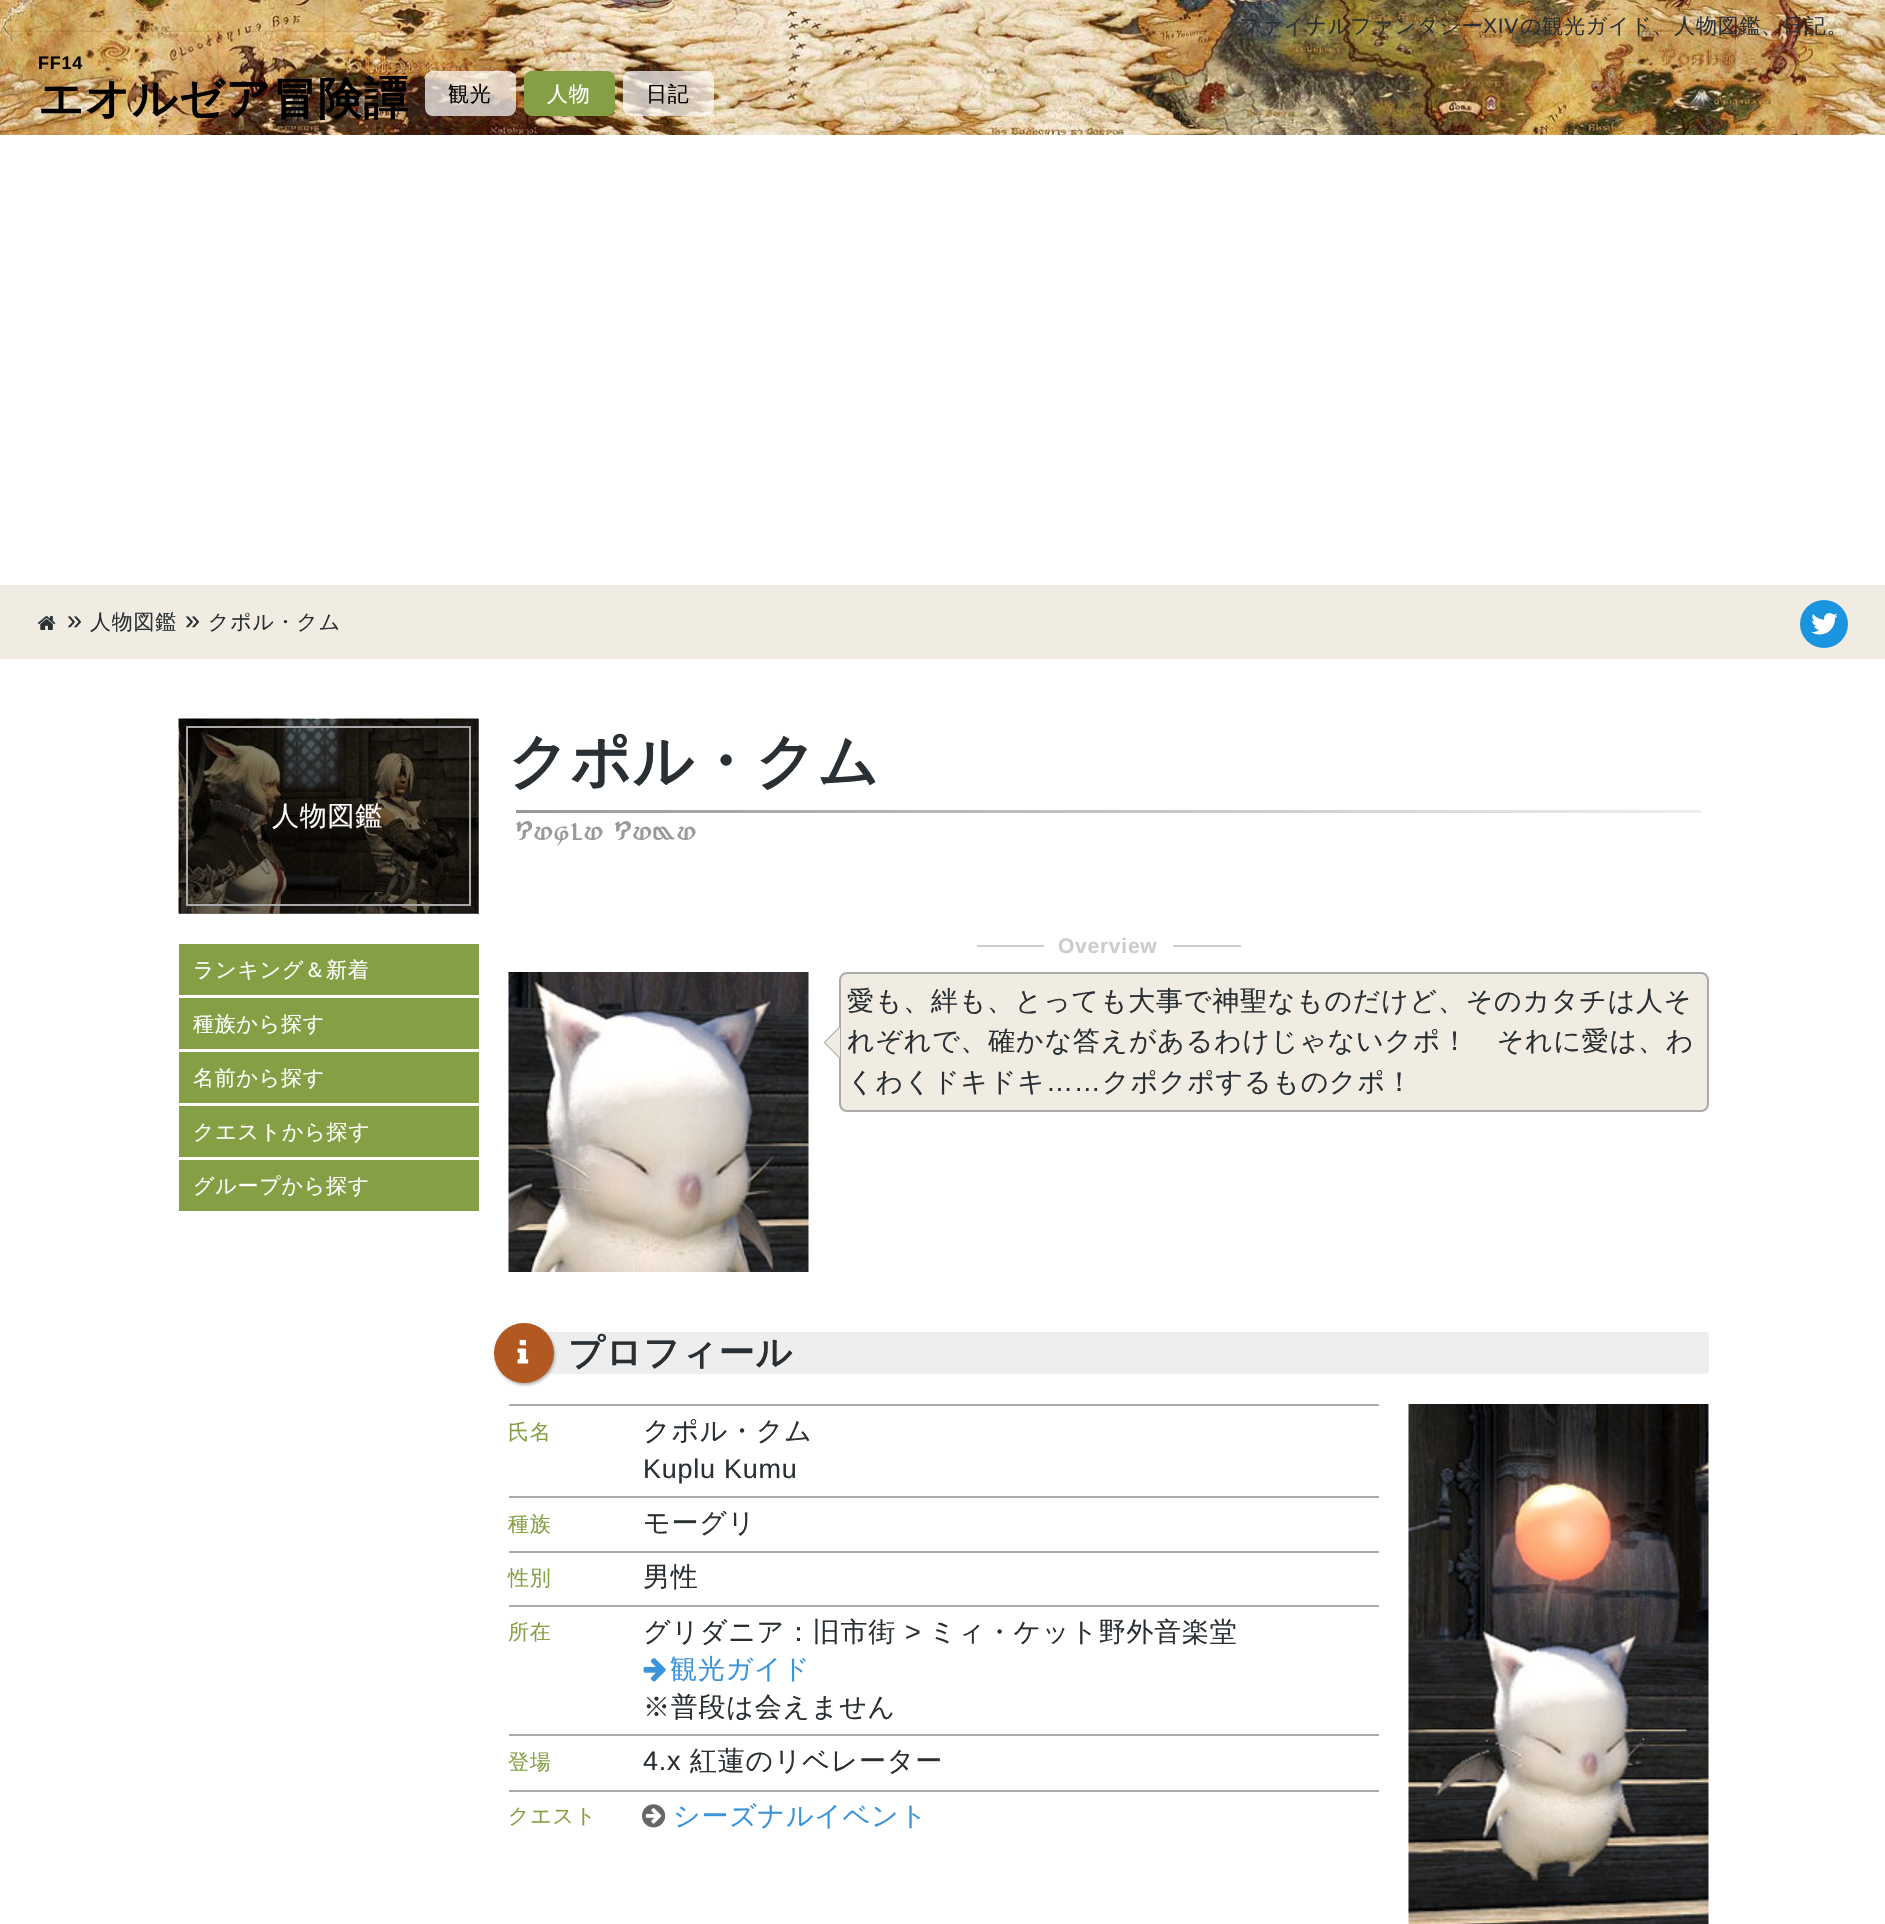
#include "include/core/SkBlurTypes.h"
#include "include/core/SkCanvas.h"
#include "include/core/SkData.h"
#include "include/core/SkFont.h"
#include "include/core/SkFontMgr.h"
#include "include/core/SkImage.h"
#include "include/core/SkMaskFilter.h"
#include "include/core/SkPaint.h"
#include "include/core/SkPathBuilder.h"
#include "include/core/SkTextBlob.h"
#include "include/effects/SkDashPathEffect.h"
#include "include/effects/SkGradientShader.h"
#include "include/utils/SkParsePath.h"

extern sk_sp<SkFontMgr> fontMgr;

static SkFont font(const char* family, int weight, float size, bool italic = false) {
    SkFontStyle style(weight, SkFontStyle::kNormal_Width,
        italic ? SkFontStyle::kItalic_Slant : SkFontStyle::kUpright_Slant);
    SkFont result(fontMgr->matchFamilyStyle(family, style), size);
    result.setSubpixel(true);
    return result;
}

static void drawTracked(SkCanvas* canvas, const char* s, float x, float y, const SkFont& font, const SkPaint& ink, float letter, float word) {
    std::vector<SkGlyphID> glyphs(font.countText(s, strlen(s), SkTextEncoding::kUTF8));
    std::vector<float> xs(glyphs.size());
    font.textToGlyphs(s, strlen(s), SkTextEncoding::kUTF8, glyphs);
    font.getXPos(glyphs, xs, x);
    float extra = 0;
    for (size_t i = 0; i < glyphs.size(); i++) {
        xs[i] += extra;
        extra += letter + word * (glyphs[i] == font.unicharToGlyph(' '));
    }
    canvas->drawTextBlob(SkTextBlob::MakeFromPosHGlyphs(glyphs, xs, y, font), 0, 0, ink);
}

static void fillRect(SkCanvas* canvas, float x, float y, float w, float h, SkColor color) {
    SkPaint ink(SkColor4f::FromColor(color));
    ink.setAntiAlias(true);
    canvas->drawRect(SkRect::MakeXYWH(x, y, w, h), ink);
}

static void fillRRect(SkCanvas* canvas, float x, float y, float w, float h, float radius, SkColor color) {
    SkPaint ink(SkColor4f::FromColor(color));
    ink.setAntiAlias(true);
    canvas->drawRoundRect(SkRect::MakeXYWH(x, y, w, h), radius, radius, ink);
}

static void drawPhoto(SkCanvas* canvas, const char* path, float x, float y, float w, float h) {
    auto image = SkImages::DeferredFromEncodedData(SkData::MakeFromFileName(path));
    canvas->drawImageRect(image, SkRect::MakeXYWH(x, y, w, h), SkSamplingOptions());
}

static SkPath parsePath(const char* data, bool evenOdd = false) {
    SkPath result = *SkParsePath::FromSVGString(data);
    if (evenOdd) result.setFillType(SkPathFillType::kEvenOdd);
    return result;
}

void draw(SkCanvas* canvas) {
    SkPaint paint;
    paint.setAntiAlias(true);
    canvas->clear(0xFFFFFFFF);
    fillRect(canvas, 179, 719, 300, 195, 0xFF808080);
    drawPhoto(canvas, "assets/img1.png", 0, 0, 1885, 135);
    SkFont font1 = font("WenQuanYi Zen Hei", 500, 21);
    paint.setColor(0xFF292F33);
    drawTracked(canvas, "ファイナルファンタジー", 1239, 33, font1, paint, 0.75f, 0);
    SkFont font2 = font("Liberation Sans", 400, 21);
    drawTracked(canvas, "XIV", 1483, 33, font2, paint, 0.75f, 0);
    drawTracked(canvas, "の観光ガイド、人物図鑑、日記。", 1520, 33, font1, paint, 0.75f, 0);
    SkFont font3 = font("Liberation Sans", 700, 18);
    paint.setColor(0xFF000000);
    drawTracked(canvas, "FF14", 38, 69, font3, paint, 0.75f, 0);
    SkFont font4 = font("WenQuanYi Zen Hei", 700, 45);
    drawTracked(canvas, "エオルゼア冒険譚", 38, 114, font4, paint, 0.75f, 0);
    fillRRect(canvas, 425, 71, 91, 45, 8, 0xB3FFFFFF);
    drawTracked(canvas, "観光", 448, 101, font1, paint, 0.75f, 0);
    fillRRect(canvas, 524, 71, 91, 45, 8, 0xFF85A044);
    paint.setColor(0xFFFFFFFF);
    drawTracked(canvas, "人物", 547, 101, font1, paint, 0.75f, 0);
    fillRRect(canvas, 623, 71, 91, 45, 8, 0xB3FFFFFF);
    paint.setColor(0xFF000000);
    drawTracked(canvas, "日記", 646, 101, font1, paint, 0.75f, 0);
    fillRect(canvas, 0, 585, 1885, 74, 0xFFF0ECE1);
    drawPhoto(canvas, "assets/img2.png", 38, 616, 18, 14);
    SkFont font5 = font("Liberation Sans", 400, 27);
    paint.setColor(0xFF292F33);
    drawTracked(canvas, "»", 67, 629, font5, paint, 0.75f, 0);
    drawTracked(canvas, "人物図鑑", 90, 629, font1, paint, 0.75f, 0);
    drawTracked(canvas, "»", 185, 629, font5, paint, 0.75f, 0);
    drawTracked(canvas, "クポル・クム", 208, 629, font1, paint, 0.75f, 0);
    paint.setColor(0xFF1B94DF);
    canvas->drawCircle(1824, 624, 24, paint);
    drawPhoto(canvas, "assets/img3.png", 1811, 613, 27, 22);
    drawPhoto(canvas, "assets/img4.png", 178, 718, 301, 196);
    paint.setStroke(true);
    paint.setStrokeWidth(2);
    paint.setColor(0xFFAAAAAA);
    canvas->drawRect(SkRect::MakeXYWH(187, 727, 283, 178), paint);
    SkFont font6 = font("WenQuanYi Zen Hei", 500, 27);
    paint.setStroke(false);
    paint.setColor(0xFFFFFFFF);
    drawTracked(canvas, "人物図鑑", 272, 825, font6, paint, 0.75f, 0);
    fillRect(canvas, 179, 944, 300, 51, 0xFF85A044);
    drawTracked(canvas, "ランキング＆新着", 193, 977, font1, paint, 0.75f, 0);
    fillRect(canvas, 179, 998, 300, 51, 0xFF85A044);
    drawTracked(canvas, "種族から探す", 193, 1031, font1, paint, 0.75f, 0);
    fillRect(canvas, 179, 1052, 300, 51, 0xFF85A044);
    drawTracked(canvas, "名前から探す", 193, 1085, font1, paint, 0.75f, 0);
    fillRect(canvas, 179, 1106, 300, 51, 0xFF85A044);
    drawTracked(canvas, "クエストから探す", 193, 1139, font1, paint, 0.75f, 0);
    fillRect(canvas, 179, 1160, 300, 51, 0xFF85A044);
    drawTracked(canvas, "グループから探す", 193, 1193, font1, paint, 0.75f, 0);
    SkFont font7 = font("WenQuanYi Zen Hei", 700, 60);
    paint.setColor(0xFF292F33);
    drawTracked(canvas, "クポル・クム", 508, 782, font7, paint, 0.75f, 0);
    {
        const SkColor colors[] = {0xFF999999, 0xFFEEEEEE};
        const float stops[] = {0, 1};
        const SkPoint ends[] = {{516, 810}, {1701, 813}};
        paint.setShader(SkGradientShader::MakeLinear(ends, colors, stops, 2, SkTileMode::kClamp));
        paint.setAlpha(255);
    }
    canvas->drawRect(SkRect::MakeXYWH(516, 810, 1185, 3), paint);
    SkFont font8 = font("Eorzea", 400, 27);
    paint.setShader(nullptr);
    paint.setColor(0xFF999999);
    drawTracked(canvas, "Kuplu Kumu", 516, 840, font8, paint, 0.75f, 0);
    fillRect(canvas, 977, 945, 67, 2, 0xFFCCCCCC);
    SkFont font9 = font("Liberation Sans", 700, 21);
    paint.setColor(0xFFCCCCCC);
    drawTracked(canvas, "Overview", 1058, 953, font9, paint, 0.75f, 0);
    fillRect(canvas, 1173, 945, 68, 2, 0xFFCCCCCC);
    drawPhoto(canvas, "assets/img5.png", 508, 972, 301, 300);
    paint.setColor(0xFFF0ECE1);
    canvas->drawRoundRect(SkRect::MakeXYWH(840, 973, 868, 138), 7, 7, paint);
    paint.setStroke(true);
    paint.setColor(0xFFAAAAAA);
    canvas->drawRoundRect(SkRect::MakeXYWH(840, 973, 868, 138), 7, 7, paint);
    paint.setStroke(false);
    paint.setColor(0xFF292F33);
    drawTracked(canvas, "愛も、絆も、とっても大事で神聖なものだけど、そのカタチは人そ", 847, 1010, font6, paint, 0.75f, 0);
    paint.setColor(0xFFAAAAAA);
    canvas->drawPath(parsePath("M840 1026V1059L823.5 1042.5Z"), paint);
    paint.setColor(0xFFF0ECE1);
    canvas->drawPath(parsePath("M840 1027.5V1057.5L825 1042.5Z"), paint);
    paint.setColor(0xFF292F33);
    drawTracked(canvas, "れぞれで、確かな答えがあるわけじゃないクポ！　それに愛は、わ", 847, 1050, font6, paint, 0.75f, 0);
    drawTracked(canvas, "くわくドキドキ", 847, 1091, font6, paint, 0.75f, 0);
    drawTracked(canvas, "……", 1046, 1091, font5, paint, 0.75f, 0);
    drawTracked(canvas, "クポクポするものクポ！", 1102, 1091, font6, paint, 0.75f, 0);
    paint.setColor(0xFFEEEEEE);
    canvas->drawPath(parsePath("M530 1332H1706C1707.5 1332 1709 1333.5 1709 1335V1371C1709 1372.5 1707.5 1374 1706 1374H530C518.5 1374 509 1364.5 509 1353C509 1341.5 518.5 1332 530 1332Z"), paint);
    paint.setColor(0x4D000000);
    paint.setMaskFilter(SkMaskFilter::MakeBlur(kNormal_SkBlurStyle, 1.5f));
    canvas->drawRoundRect(SkRect::MakeXYWH(495, 1325, 60, 60), 30, 30, paint);
    paint.setMaskFilter(nullptr);
    paint.setColor(0xFFB25821);
    canvas->drawCircle(524, 1353, 30, paint);
    drawPhoto(canvas, "assets/img6.png", 517, 1339, 12, 25);
    SkFont font10 = font("WenQuanYi Zen Hei", 700, 36);
    paint.setColor(0xFF292F33);
    drawTracked(canvas, "プロフィール", 568, 1365, font10, paint, 0.75f, 0);
    paint.setColor(0xFF85A044);
    drawTracked(canvas, "氏名", 508, 1439, font1, paint, 0.75f, 0);
    fillRect(canvas, 509, 1404, 870, 2, 0xFFAAAAAA);
    paint.setColor(0xFF292F33);
    drawTracked(canvas, "クポル・クム", 643, 1440, font6, paint, 0.75f, 0);
    drawTracked(canvas, "Kuplu Kumu", 643, 1478, font5, paint, 0.75f, 0);
    paint.setColor(0xFF85A044);
    drawTracked(canvas, "種族", 508, 1531, font1, paint, 0.75f, 0);
    fillRect(canvas, 509, 1496, 870, 2, 0xFFAAAAAA);
    paint.setColor(0xFF292F33);
    drawTracked(canvas, "モーグリ", 643, 1532, font6, paint, 0.75f, 0);
    paint.setColor(0xFF85A044);
    drawTracked(canvas, "性別", 508, 1585, font1, paint, 0.75f, 0);
    fillRect(canvas, 509, 1551, 870, 2, 0xFFAAAAAA);
    paint.setColor(0xFF292F33);
    drawTracked(canvas, "男性", 643, 1586, font6, paint, 0.75f, 0);
    paint.setColor(0xFF85A044);
    drawTracked(canvas, "所在", 508, 1639, font1, paint, 0.75f, 0);
    fillRect(canvas, 509, 1605, 870, 2, 0xFFAAAAAA);
    paint.setColor(0xFF292F33);
    drawTracked(canvas, "グリダニア：旧市街", 643, 1641, font6, paint, 0.75f, 0);
    drawTracked(canvas, ">", 905, 1641, font5, paint, 0.75f, 0);
    drawTracked(canvas, "ミィ・ケット野外音楽堂", 929, 1641, font6, paint, 0.75f, 0);
    drawPhoto(canvas, "assets/img7.png", 643, 1658, 23, 24);
    paint.setColor(0xFF3B94D9);
    drawTracked(canvas, "観光ガイド", 670, 1678, font6, paint, 0.75f, 0);
    paint.setColor(0xFF292F33);
    drawTracked(canvas, "※普段は会えません", 643, 1716, font6, paint, 0.75f, 0);
    paint.setColor(0xFF85A044);
    drawTracked(canvas, "登場", 508, 1769, font1, paint, 0.75f, 0);
    fillRect(canvas, 509, 1734, 870, 2, 0xFFAAAAAA);
    paint.setColor(0xFF292F33);
    drawTracked(canvas, "4.x", 643, 1770, font5, paint, 0.75f, 0);
    drawTracked(canvas, "紅蓮のリベレーター", 690, 1770, font6, paint, 0.75f, 0);
    paint.setColor(0xFF85A044);
    drawTracked(canvas, "クエスト", 508, 1823, font1, paint, 0.75f, 0);
    fillRect(canvas, 509, 1790, 870, 2, 0xFFAAAAAA);
    drawPhoto(canvas, "assets/img8.png", 642, 1804, 24, 24);
    paint.setColor(0xFF3B94D9);
    drawTracked(canvas, "シーズナルイベント", 673, 1825, font6, paint, 0.75f, 0);
    drawPhoto(canvas, "assets/img9.png", 1408, 1404, 301, 520);
}
